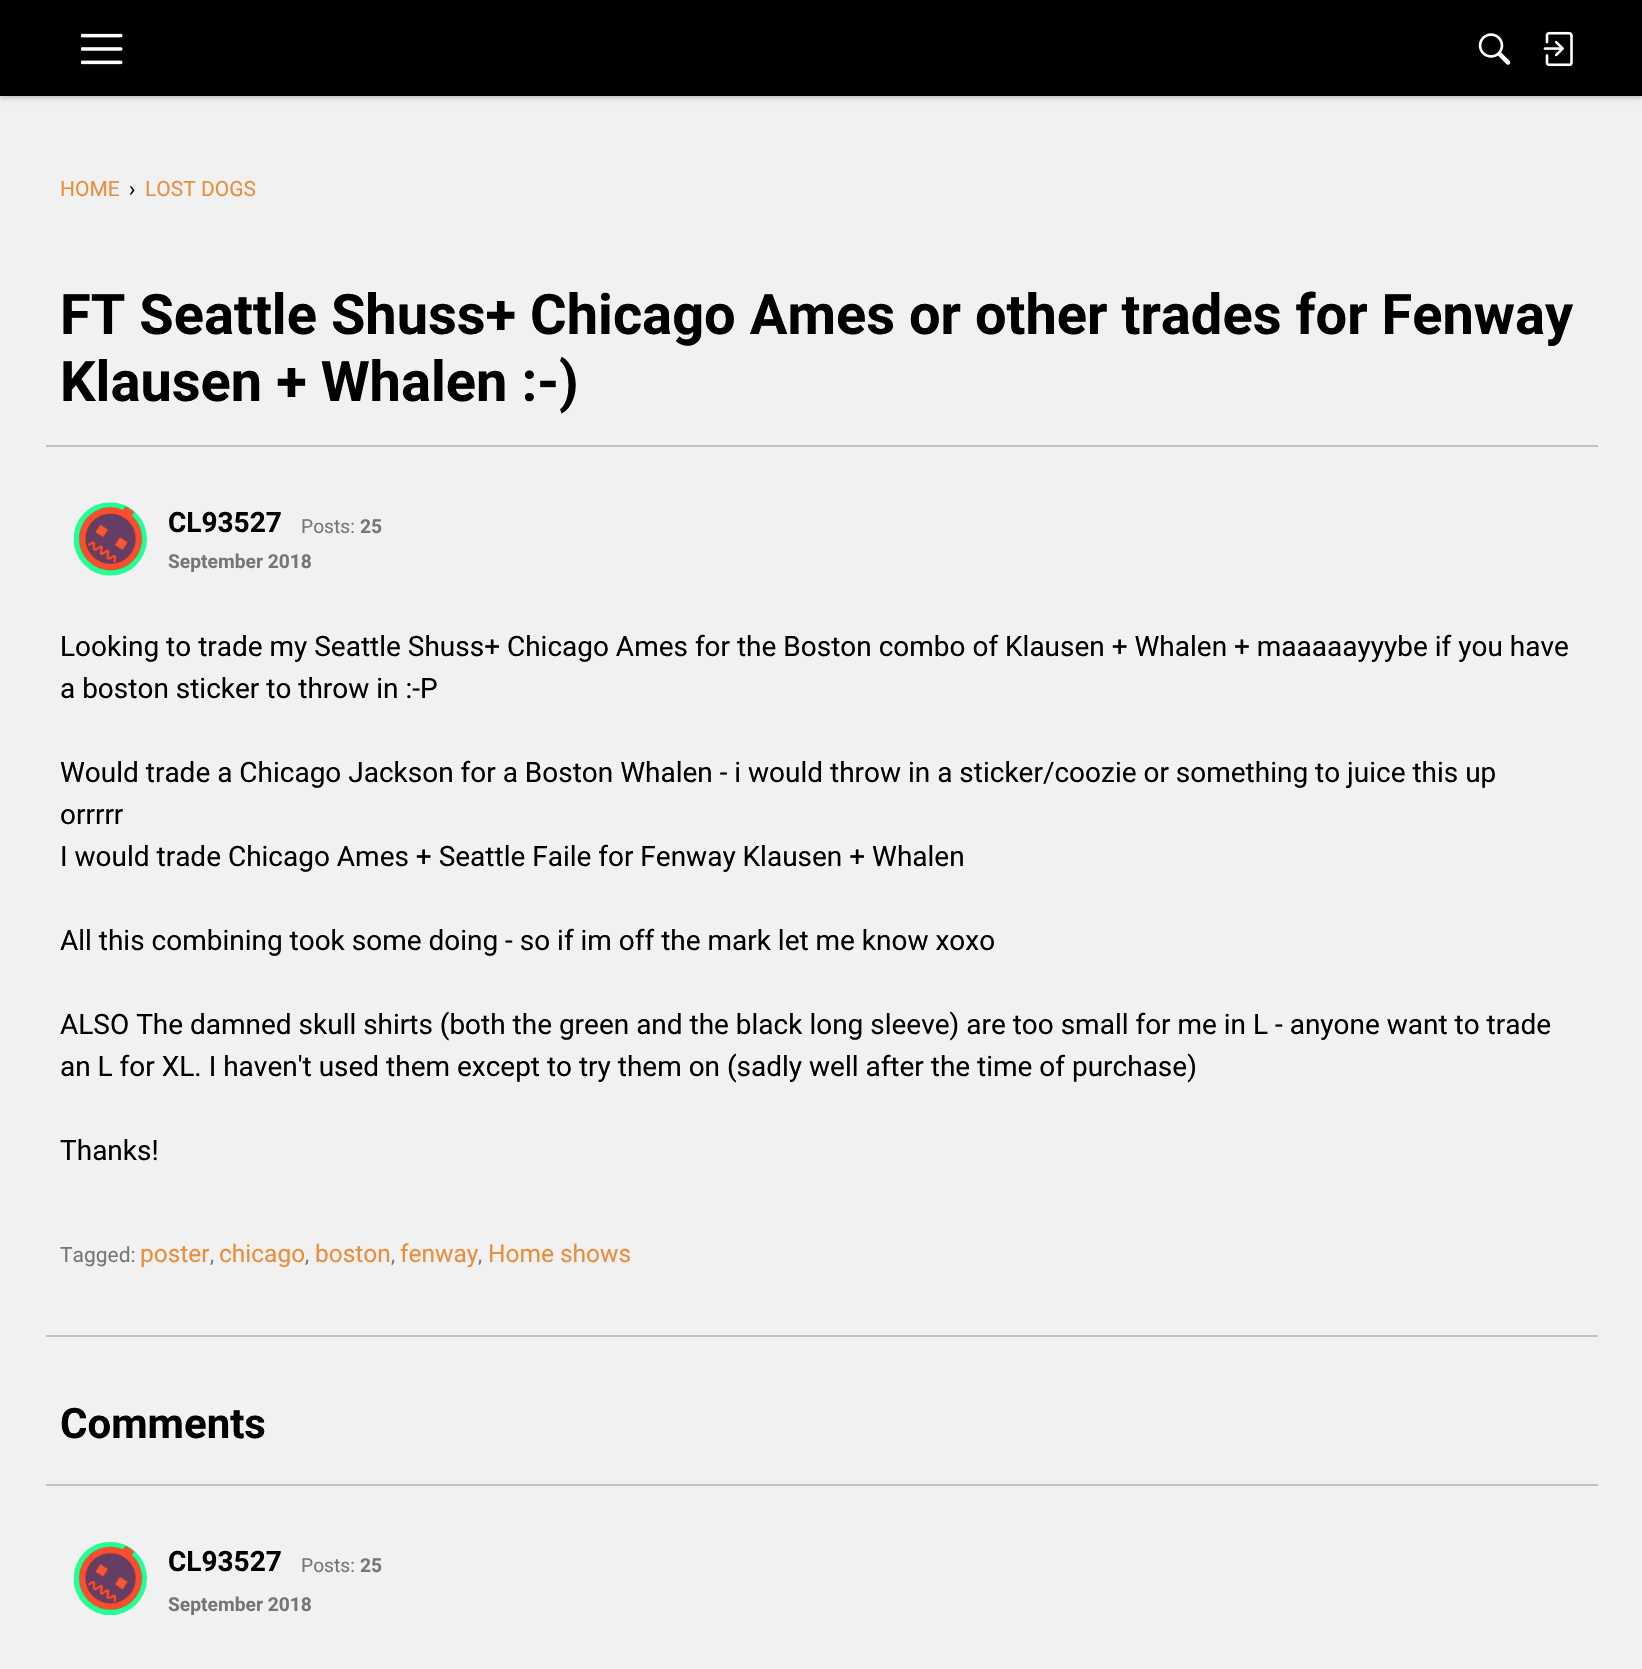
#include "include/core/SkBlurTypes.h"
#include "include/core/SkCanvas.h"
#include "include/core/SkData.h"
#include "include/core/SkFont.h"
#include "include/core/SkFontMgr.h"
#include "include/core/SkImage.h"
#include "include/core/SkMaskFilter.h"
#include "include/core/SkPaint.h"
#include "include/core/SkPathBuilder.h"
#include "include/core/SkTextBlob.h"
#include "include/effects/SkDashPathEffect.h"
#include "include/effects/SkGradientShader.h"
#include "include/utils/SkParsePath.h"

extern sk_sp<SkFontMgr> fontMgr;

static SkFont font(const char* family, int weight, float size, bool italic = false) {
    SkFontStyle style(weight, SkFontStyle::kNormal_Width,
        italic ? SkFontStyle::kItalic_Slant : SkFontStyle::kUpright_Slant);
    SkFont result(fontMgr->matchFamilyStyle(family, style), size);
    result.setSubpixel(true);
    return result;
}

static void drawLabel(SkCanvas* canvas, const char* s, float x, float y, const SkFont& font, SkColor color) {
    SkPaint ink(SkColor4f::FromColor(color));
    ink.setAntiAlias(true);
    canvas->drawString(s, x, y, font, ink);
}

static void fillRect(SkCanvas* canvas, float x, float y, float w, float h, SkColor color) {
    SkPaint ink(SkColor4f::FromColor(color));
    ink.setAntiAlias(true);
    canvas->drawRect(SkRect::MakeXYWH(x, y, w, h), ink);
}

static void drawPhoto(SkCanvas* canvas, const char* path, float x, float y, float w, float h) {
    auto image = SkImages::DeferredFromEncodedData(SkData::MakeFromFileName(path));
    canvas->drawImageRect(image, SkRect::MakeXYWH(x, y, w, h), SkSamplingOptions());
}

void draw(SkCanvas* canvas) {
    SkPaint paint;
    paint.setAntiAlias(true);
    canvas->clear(0xFFF1F1F1);
    paint.setColor(0x38000000);
    paint.setMaskFilter(SkMaskFilter::MakeBlur(kNormal_SkBlurStyle, 2.5f));
    canvas->drawRect(SkRect::MakeXYWH(0, 2, 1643, 96), paint);
    paint.setMaskFilter(nullptr);
    fillRect(canvas, 0, 0, 1642, 96, 0xFF000000);
    drawPhoto(canvas, "assets/img1.png", 81, 33, 42, 32);
    drawPhoto(canvas, "assets/img2.png", 1478, 33, 33, 32);
    drawPhoto(canvas, "assets/img3.png", 1543, 31, 30, 36);
    SkFont font1 = font("Roboto", 400, 21);
    drawLabel(canvas, "HOME", 60, 196, font1, 0xFFE88F3D);
    drawLabel(canvas, "›", 129, 196, font1, 0xFF000000);
    drawLabel(canvas, "LOST DOGS", 145, 196, font1, 0xFFE88F3D);
    SkFont font2 = font("Roboto", 700, 56);
    drawLabel(canvas, "FT Seattle Shuss+ Chicago Ames or other trades for Fenway", 60, 334, font2, 0xFF000000);
    drawLabel(canvas, "Klausen + Whalen :-)", 60, 401, font2, 0xFF000000);
    fillRect(canvas, 46, 445, 1552, 2, 0xFFC1C1C1);
    drawPhoto(canvas, "assets/img4.png", 73, 502, 74, 74);
    SkFont font3 = font("Roboto", 700, 28);
    drawLabel(canvas, "CL93527", 168, 532, font3, 0xFF000000);
    SkFont font4 = font("Roboto", 400, 19.25f);
    drawLabel(canvas, "Posts:", 301, 533, font4, 0xFF767676);
    SkFont font5 = font("Roboto", 700, 19.25f);
    drawLabel(canvas, "25", 360, 533, font5, 0xFF767676);
    drawLabel(canvas, "September 2018", 168, 568, font5, 0xFF767676);
    SkFont font6 = font("Roboto", 400, 28);
    drawLabel(canvas, "Looking to trade my Seattle Shuss+ Chicago Ames for the Boston combo of Klausen + Whalen + maaaaayyybe if you have", 60, 656, font6, 0xFF000000);
    drawLabel(canvas, "a boston sticker to throw in :-P", 60, 698, font6, 0xFF000000);
    drawLabel(canvas, "Would trade a Chicago Jackson for a Boston Whalen - i would throw in a sticker/coozie or something to juice this up", 60, 782, font6, 0xFF000000);
    drawLabel(canvas, "orrrrr", 60, 824, font6, 0xFF000000);
    drawLabel(canvas, "I would trade Chicago Ames + Seattle Faile for Fenway Klausen + Whalen", 60, 866, font6, 0xFF000000);
    drawLabel(canvas, "All this combining took some doing - so if im off the mark let me know xoxo", 60, 950, font6, 0xFF000000);
    drawLabel(canvas, "ALSO The damned skull shirts (both the green and the black long sleeve) are too small for me in L - anyone want to trade", 60, 1034, font6, 0xFF000000);
    drawLabel(canvas, "an L for XL. I haven't used them except to try them on (sadly well after the time of purchase)", 60, 1076, font6, 0xFF000000);
    drawLabel(canvas, "Thanks!", 60, 1160, font6, 0xFF000000);
    drawLabel(canvas, "Tagged:", 60, 1262, font1, 0xFF767676);
    SkFont font7 = font("Roboto", 400, 24.5f);
    drawLabel(canvas, "poster", 140, 1262, font7, 0xFFE88F3D);
    drawLabel(canvas, ",", 210, 1262, font1, 0xFF767676);
    drawLabel(canvas, "chicago", 219, 1262, font7, 0xFFE88F3D);
    drawLabel(canvas, ",", 305, 1262, font1, 0xFF767676);
    drawLabel(canvas, "boston", 315, 1262, font7, 0xFFE88F3D);
    drawLabel(canvas, ",", 391, 1262, font1, 0xFF767676);
    drawLabel(canvas, "fenway", 400, 1262, font7, 0xFFE88F3D);
    drawLabel(canvas, ",", 478, 1262, font1, 0xFF767676);
    drawLabel(canvas, "Home shows", 488, 1262, font7, 0xFFE88F3D);
    fillRect(canvas, 46, 1335, 1552, 2, 0xFFC1C1C1);
    SkFont font8 = font("Roboto", 700, 42);
    drawLabel(canvas, "Comments", 60, 1438, font8, 0xFF000000);
    fillRect(canvas, 46, 1484, 1552, 2, 0xFFC1C1C1);
    drawPhoto(canvas, "assets/img5.png", 73, 1541, 74, 75);
    drawLabel(canvas, "CL93527", 168, 1571, font3, 0xFF000000);
    drawLabel(canvas, "Posts:", 301, 1572, font4, 0xFF767676);
    drawLabel(canvas, "25", 360, 1572, font5, 0xFF767676);
    drawLabel(canvas, "September 2018", 168, 1611, font5, 0xFF767676);
}
